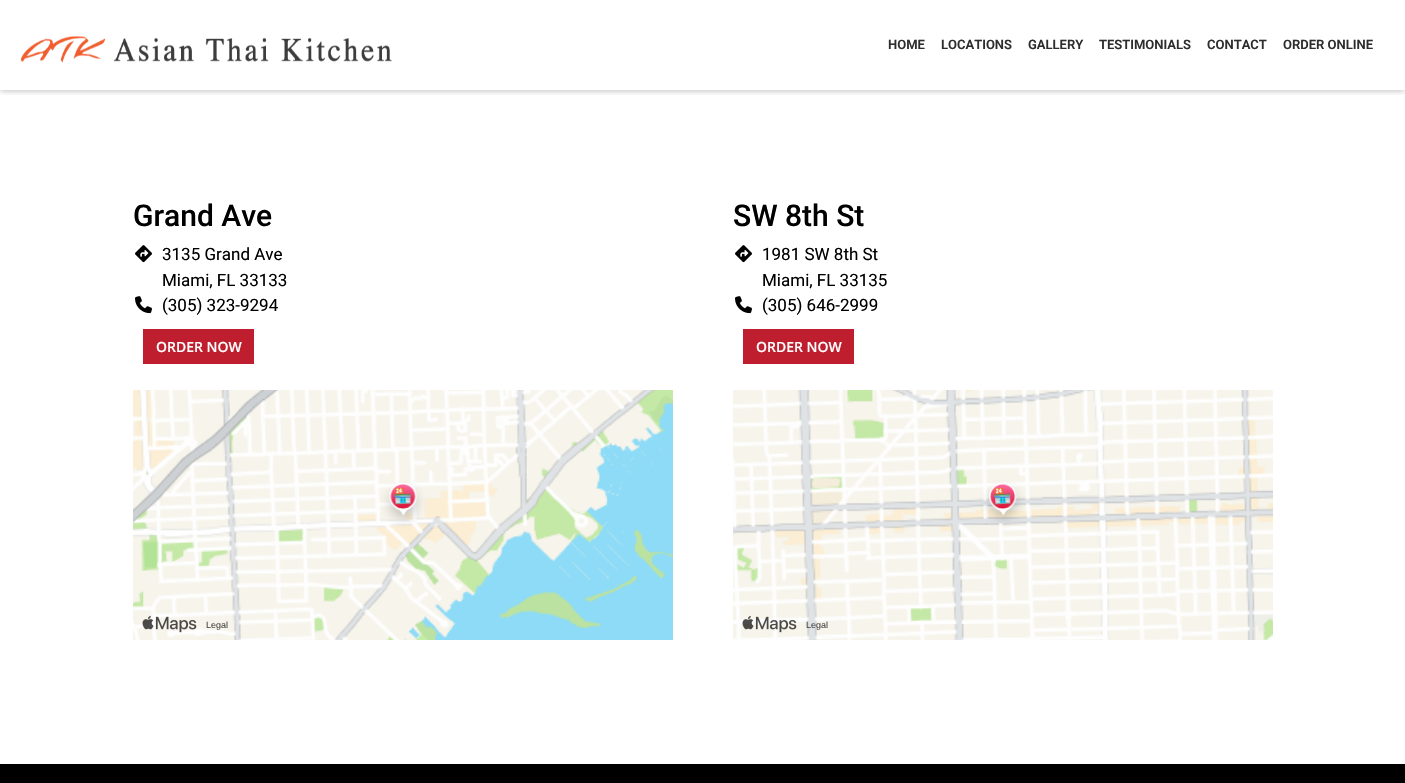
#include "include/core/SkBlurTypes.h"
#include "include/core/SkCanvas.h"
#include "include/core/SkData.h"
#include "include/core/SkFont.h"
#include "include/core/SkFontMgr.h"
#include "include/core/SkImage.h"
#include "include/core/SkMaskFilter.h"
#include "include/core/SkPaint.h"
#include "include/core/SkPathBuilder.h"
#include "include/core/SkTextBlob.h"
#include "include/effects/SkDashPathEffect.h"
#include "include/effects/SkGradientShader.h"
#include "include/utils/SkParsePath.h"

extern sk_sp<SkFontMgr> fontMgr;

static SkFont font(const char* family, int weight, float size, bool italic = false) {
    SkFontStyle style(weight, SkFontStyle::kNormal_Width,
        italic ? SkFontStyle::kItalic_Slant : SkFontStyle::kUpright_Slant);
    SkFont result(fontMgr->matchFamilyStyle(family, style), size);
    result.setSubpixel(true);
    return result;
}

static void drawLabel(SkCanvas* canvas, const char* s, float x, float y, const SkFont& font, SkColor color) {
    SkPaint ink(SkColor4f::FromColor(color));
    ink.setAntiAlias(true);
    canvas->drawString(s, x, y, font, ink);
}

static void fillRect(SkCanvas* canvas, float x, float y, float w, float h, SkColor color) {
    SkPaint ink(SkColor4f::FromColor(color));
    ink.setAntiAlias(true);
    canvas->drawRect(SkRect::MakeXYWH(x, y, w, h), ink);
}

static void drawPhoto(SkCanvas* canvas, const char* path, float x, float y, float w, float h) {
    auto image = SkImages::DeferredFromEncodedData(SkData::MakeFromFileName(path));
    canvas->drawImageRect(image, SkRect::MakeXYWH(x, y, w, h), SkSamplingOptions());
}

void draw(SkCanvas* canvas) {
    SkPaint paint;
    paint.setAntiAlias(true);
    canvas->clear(0xFFFFFFFF);
    canvas->save();
    canvas->clipRect(SkRect::MakeXYWH(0, 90, 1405, 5));
    paint.setColor(0x47202124);
    paint.setMaskFilter(SkMaskFilter::MakeBlur(kNormal_SkBlurStyle, 3));
    canvas->drawRect(SkRect::MakeXYWH(0, 1, 1405, 90), paint);
    paint.setMaskFilter(nullptr);
    canvas->restore();
    drawPhoto(canvas, "assets/img1.png", 20, 36, 372, 27);
    SkFont font1 = font("Roboto", 600, 13);
    drawLabel(canvas, "HOME", 888, 49, font1, 0xFF2D2D2D);
    drawLabel(canvas, "LOCATIONS", 941, 49, font1, 0xFF2D2D2D);
    drawLabel(canvas, "GALLERY", 1028, 49, font1, 0xFF2D2D2D);
    drawLabel(canvas, "TESTIMONIALS", 1099, 49, font1, 0xFF2D2D2D);
    drawLabel(canvas, "CONTACT", 1207, 49, font1, 0xFF2D2D2D);
    drawLabel(canvas, "ORDER ONLINE", 1283, 49, font1, 0xFF2D2D2D);
    SkFont font2 = font("Roboto", 500, 30);
    drawLabel(canvas, "Grand Ave", 133, 226, font2, 0xFF000000);
    drawPhoto(canvas, "assets/img2.png", 135, 245, 17, 18);
    SkFont font3 = font("Roboto", 400, 17);
    drawLabel(canvas, "3135 Grand Ave", 162, 260, font3, 0xFF000000);
    drawLabel(canvas, "Miami, FL 33133", 162, 286, font3, 0xFF000000);
    drawPhoto(canvas, "assets/img3.png", 135, 296, 17, 18);
    drawLabel(canvas, "(305) 323-9294", 162, 311, font3, 0xFF000000);
    fillRect(canvas, 143, 329, 111, 35, 0xFFBE1E2D);
    SkFont font4 = font("Open Sans", 600, 14);
    drawLabel(canvas, "ORDER NOW", 156, 352, font4, 0xFFFFFFFF);
    drawPhoto(canvas, "assets/img4.png", 133, 390, 540, 250);
    drawPhoto(canvas, "assets/img5.png", 142, 615, 55, 18);
    SkFont font5 = font("Liberation Sans", 400, 9);
    drawLabel(canvas, "Legal", 206, 628, font5, 0xFF4A4947);
    drawLabel(canvas, "SW 8th St", 733, 226, font2, 0xFF000000);
    drawPhoto(canvas, "assets/img2.png", 735, 245, 17, 18);
    drawLabel(canvas, "1981 SW 8th St", 762, 260, font3, 0xFF000000);
    drawLabel(canvas, "Miami, FL 33135", 762, 286, font3, 0xFF000000);
    drawPhoto(canvas, "assets/img3.png", 735, 296, 17, 18);
    drawLabel(canvas, "(305) 646-2999", 762, 311, font3, 0xFF000000);
    fillRect(canvas, 743, 329, 111, 35, 0xFFBE1E2D);
    drawLabel(canvas, "ORDER NOW", 756, 352, font4, 0xFFFFFFFF);
    drawPhoto(canvas, "assets/img6.png", 733, 390, 540, 250);
    drawPhoto(canvas, "assets/img7.png", 742, 615, 55, 18);
    drawLabel(canvas, "Legal", 806, 628, font5, 0xFF4A4947);
    fillRect(canvas, 0, 764, 1405, 19, 0xFF000000);
}
